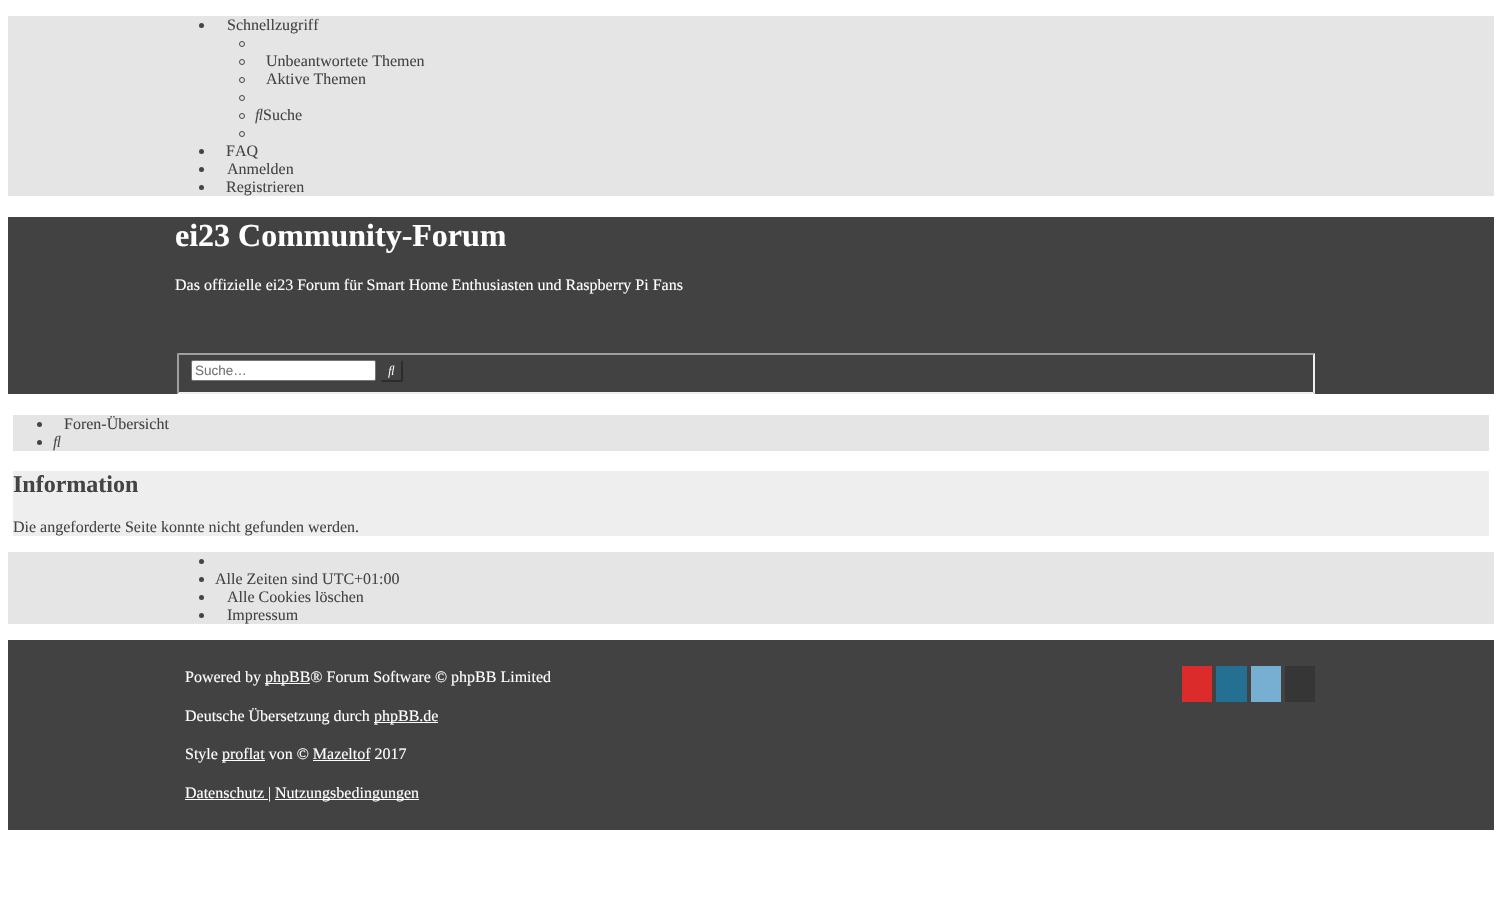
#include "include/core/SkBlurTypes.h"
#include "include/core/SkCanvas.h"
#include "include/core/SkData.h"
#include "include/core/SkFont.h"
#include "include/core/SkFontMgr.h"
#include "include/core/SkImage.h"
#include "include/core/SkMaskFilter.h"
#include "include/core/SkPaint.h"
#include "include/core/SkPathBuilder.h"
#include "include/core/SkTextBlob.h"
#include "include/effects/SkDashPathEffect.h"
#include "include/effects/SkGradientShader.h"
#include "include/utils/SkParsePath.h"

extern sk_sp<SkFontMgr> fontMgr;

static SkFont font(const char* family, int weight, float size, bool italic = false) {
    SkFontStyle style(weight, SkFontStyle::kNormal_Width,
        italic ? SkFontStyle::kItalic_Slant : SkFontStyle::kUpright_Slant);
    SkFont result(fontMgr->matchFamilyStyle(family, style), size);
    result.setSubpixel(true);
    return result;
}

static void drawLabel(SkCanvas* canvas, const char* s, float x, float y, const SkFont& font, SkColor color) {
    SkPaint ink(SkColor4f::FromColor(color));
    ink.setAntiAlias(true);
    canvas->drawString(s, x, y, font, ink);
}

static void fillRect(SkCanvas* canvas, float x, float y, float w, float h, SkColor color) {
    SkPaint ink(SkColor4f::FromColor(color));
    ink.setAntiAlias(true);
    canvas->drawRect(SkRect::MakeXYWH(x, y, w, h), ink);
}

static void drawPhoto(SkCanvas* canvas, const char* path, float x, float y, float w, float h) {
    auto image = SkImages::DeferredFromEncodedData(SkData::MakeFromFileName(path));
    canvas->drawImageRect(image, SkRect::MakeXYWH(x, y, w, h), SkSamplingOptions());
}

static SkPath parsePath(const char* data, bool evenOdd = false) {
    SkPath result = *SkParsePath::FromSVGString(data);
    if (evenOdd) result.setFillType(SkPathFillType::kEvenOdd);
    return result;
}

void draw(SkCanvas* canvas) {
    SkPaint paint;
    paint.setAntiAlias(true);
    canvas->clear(0xFFFFFFFF);
    fillRect(canvas, 8, 16, 1486, 180, 0xFFE5E5E5);
    paint.setColor(0xFF444444);
    canvas->drawCircle(201.5f, 25.5f, 2.5f, paint);
    SkFont font1 = font("Liberation Serif", 400, 16);
    drawLabel(canvas, "Schnellzugriff", 227, 30, font1, 0xFF444444);
    paint.setStroke(true);
    paint.setStrokeWidth(1);
    canvas->drawCircle(242, 44, 2.5f, paint);
    canvas->drawCircle(242, 62, 2.5f, paint);
    drawLabel(canvas, "Unbeantwortete Themen", 266, 66, font1, 0xFF444444);
    canvas->drawCircle(242, 80, 2.5f, paint);
    drawLabel(canvas, "Aktive Themen", 266, 84, font1, 0xFF444444);
    canvas->drawCircle(242, 98, 2.5f, paint);
    canvas->drawCircle(242, 116, 2.5f, paint);
    drawPhoto(canvas, "assets/img1.png", 255, 108, 8, 16);
    drawLabel(canvas, "Suche", 263, 120, font1, 0xFF444444);
    canvas->drawCircle(242, 134, 2.5f, paint);
    paint.setStroke(false);
    canvas->drawCircle(201.5f, 151.5f, 2.5f, paint);
    drawLabel(canvas, "FAQ", 226, 156, font1, 0xFF444444);
    canvas->drawCircle(201.5f, 169.5f, 2.5f, paint);
    drawLabel(canvas, "Anmelden", 227, 174, font1, 0xFF444444);
    canvas->drawCircle(201.5f, 187.5f, 2.5f, paint);
    drawLabel(canvas, "Registrieren", 226, 192, font1, 0xFF444444);
    fillRect(canvas, 8, 217, 1486, 177, 0xFF424242);
    SkFont font2 = font("Liberation Serif", 700, 32);
    drawLabel(canvas, "ei23 Community-Forum", 175, 246, font2, 0xFFFFFFFF);
    drawLabel(canvas, "Das offizielle ei23 Forum für Smart Home Enthusiasten und Raspberry Pi Fans", 175, 290, font1, 0xFFFFFFFF);
    paint.setColor(0xFF9F9F9F);
    canvas->drawPath(parsePath("M177 353H1315L1313 355H179Z"), paint);
    paint.setColor(0xFFEFEFEF);
    canvas->drawPath(parsePath("M1315 353V394L1313 392V355Z"), paint);
    canvas->drawPath(parsePath("M1315 394H177L179 392H1313Z"), paint);
    paint.setColor(0xFF9F9F9F);
    canvas->drawPath(parsePath("M177 394V353L179 355V392Z"), paint);
    paint.setColor(0xFFFFFFFF);
    canvas->drawRoundRect(SkRect::MakeXYWH(191.5f, 360.5f, 184, 20), 1.5f, 1.5f, paint);
    paint.setStroke(true);
    paint.setColor(0xFF767676);
    canvas->drawRoundRect(SkRect::MakeXYWH(191.5f, 360.5f, 184, 20), 1.5f, 1.5f, paint);
    SkFont font3 = font("Liberation Sans", 400, 13.5f);
    drawLabel(canvas, "Suche…", 195, 375, font3, 0xFF757575);
    paint.setStroke(false);
    paint.setColor(0xFF2C2C2C);
    canvas->drawPath(parsePath("M403 360V382L401 380V362Z"), paint);
    canvas->drawPath(parsePath("M403 382H380L382 380H401Z"), paint);
    paint.setColor(0xFF424242);
    canvas->drawPath(parsePath("M380 382V360L382 362V380Z"), paint);
    drawPhoto(canvas, "assets/img2.png", 388, 365, 7, 13);
    fillRect(canvas, 13, 415, 1476, 36, 0xFFE5E5E5);
    paint.setColor(0xFF444444);
    canvas->drawCircle(39.5f, 424.5f, 2.5f, paint);
    drawLabel(canvas, "Foren-Übersicht", 64, 429, font1, 0xFF444444);
    canvas->drawCircle(39.5f, 442.5f, 2.5f, paint);
    drawPhoto(canvas, "assets/img1.png", 53, 435, 8, 16);
    fillRect(canvas, 13, 471, 1476, 65, 0xFFEEEEEE);
    SkFont font4 = font("Liberation Serif", 700, 24);
    drawLabel(canvas, "Information", 13, 492, font4, 0xFF444444);
    drawLabel(canvas, "Die angeforderte Seite konnte nicht gefunden werden.", 13, 532, font1, 0xFF444444);
    fillRect(canvas, 8, 552, 1486, 72, 0xFFE5E5E5);
    canvas->drawCircle(201.5f, 561.5f, 2.5f, paint);
    canvas->drawCircle(201.5f, 579.5f, 2.5f, paint);
    drawLabel(canvas, "Alle Zeiten sind UTC+01:00", 215, 584, font1, 0xFF444444);
    canvas->drawCircle(201.5f, 597.5f, 2.5f, paint);
    drawLabel(canvas, "Alle Cookies löschen", 227, 602, font1, 0xFF444444);
    canvas->drawCircle(201.5f, 615.5f, 2.5f, paint);
    drawLabel(canvas, "Impressum", 227, 620, font1, 0xFF444444);
    fillRect(canvas, 8, 640, 1486, 190, 0xFF424242);
    drawLabel(canvas, "Powered by", 185, 682, font1, 0xFFFFFFFF);
    fillRect(canvas, 265, 683, 45, 1, 0xFFFFFFFF);
    drawLabel(canvas, "phpBB® Forum Software © phpBB Limited", 265, 682, font1, 0xFFFFFFFF);
    drawLabel(canvas, "Deutsche Übersetzung durch", 185, 721, font1, 0xFFFFFFFF);
    fillRect(canvas, 374, 722, 64, 1, 0xFFFFFFFF);
    drawLabel(canvas, "phpBB.de", 374, 721, font1, 0xFFFFFFFF);
    drawLabel(canvas, "Style", 185, 759, font1, 0xFFFFFFFF);
    fillRect(canvas, 222, 760, 43, 1, 0xFFFFFFFF);
    drawLabel(canvas, "proflat von © Mazeltof 2017", 222, 759, font1, 0xFFFFFFFF);
    fillRect(canvas, 313, 760, 57, 1, 0xFFFFFFFF);
    fillRect(canvas, 185, 799, 83, 1, 0xFFFFFFFF);
    drawLabel(canvas, "Datenschutz |", 185, 798, font1, 0xFFFFFFFF);
    fillRect(canvas, 275, 799, 144, 1, 0xFFFFFFFF);
    drawLabel(canvas, "Nutzungsbedingungen", 275, 798, font1, 0xFFFFFFFF);
    fillRect(canvas, 1182, 666, 30, 36, 0xFFDB2B2B);
    fillRect(canvas, 1216, 666, 31, 36, 0xFF247092);
    fillRect(canvas, 1251, 666, 30, 36, 0xFF77AFD3);
    fillRect(canvas, 1285, 666, 30, 36, 0xFF363636);
}
